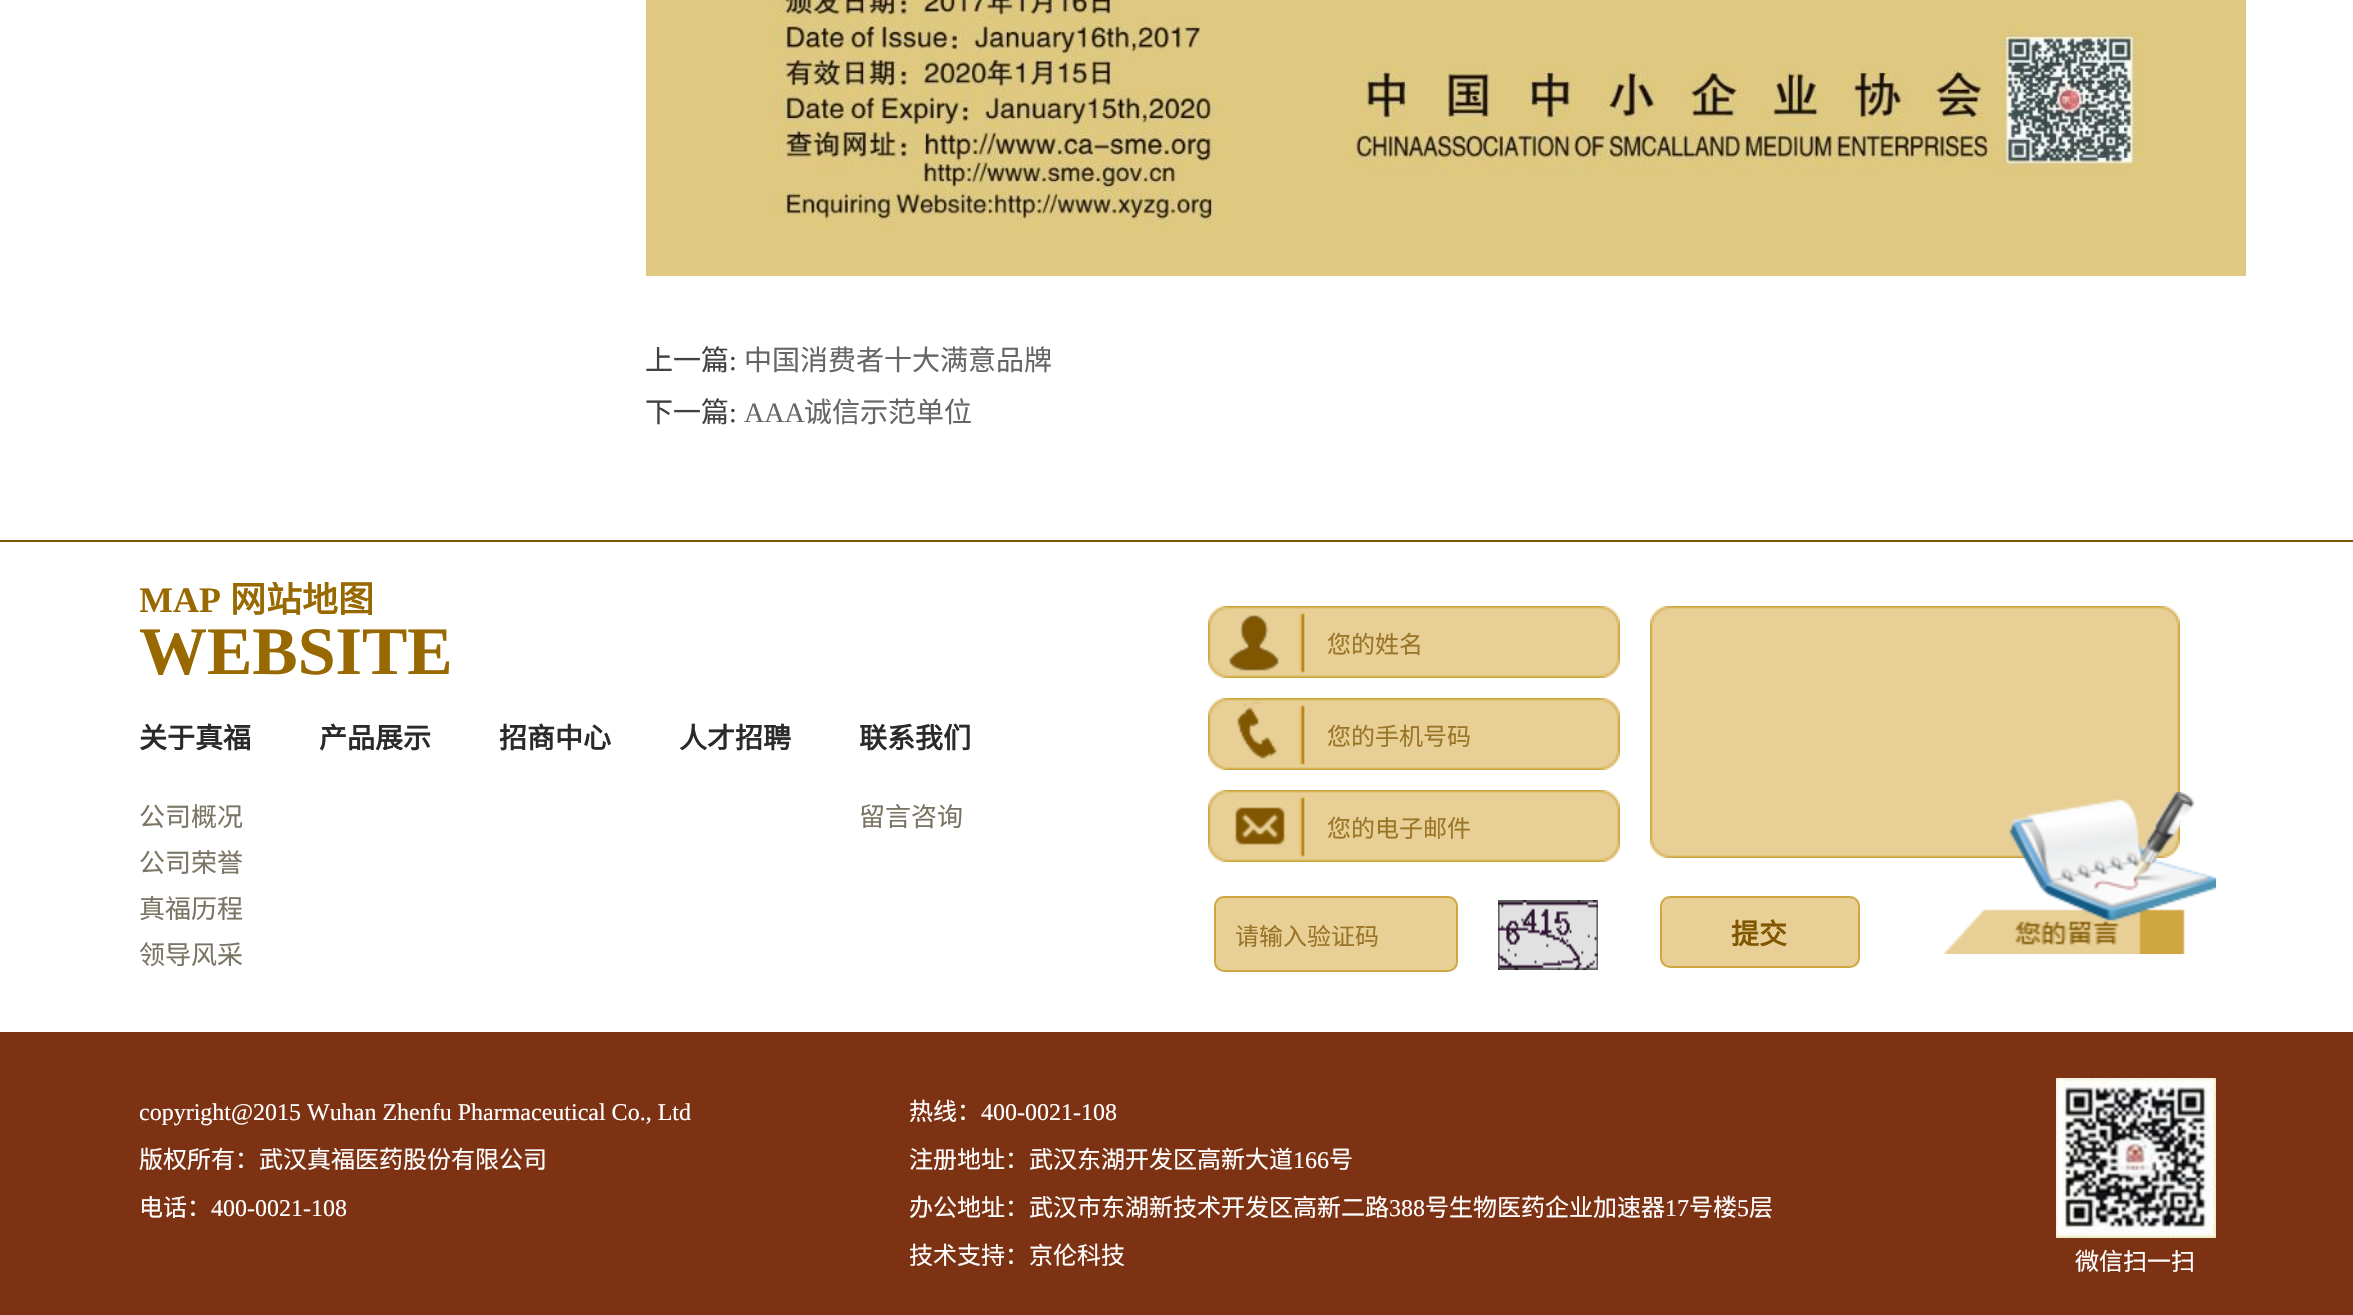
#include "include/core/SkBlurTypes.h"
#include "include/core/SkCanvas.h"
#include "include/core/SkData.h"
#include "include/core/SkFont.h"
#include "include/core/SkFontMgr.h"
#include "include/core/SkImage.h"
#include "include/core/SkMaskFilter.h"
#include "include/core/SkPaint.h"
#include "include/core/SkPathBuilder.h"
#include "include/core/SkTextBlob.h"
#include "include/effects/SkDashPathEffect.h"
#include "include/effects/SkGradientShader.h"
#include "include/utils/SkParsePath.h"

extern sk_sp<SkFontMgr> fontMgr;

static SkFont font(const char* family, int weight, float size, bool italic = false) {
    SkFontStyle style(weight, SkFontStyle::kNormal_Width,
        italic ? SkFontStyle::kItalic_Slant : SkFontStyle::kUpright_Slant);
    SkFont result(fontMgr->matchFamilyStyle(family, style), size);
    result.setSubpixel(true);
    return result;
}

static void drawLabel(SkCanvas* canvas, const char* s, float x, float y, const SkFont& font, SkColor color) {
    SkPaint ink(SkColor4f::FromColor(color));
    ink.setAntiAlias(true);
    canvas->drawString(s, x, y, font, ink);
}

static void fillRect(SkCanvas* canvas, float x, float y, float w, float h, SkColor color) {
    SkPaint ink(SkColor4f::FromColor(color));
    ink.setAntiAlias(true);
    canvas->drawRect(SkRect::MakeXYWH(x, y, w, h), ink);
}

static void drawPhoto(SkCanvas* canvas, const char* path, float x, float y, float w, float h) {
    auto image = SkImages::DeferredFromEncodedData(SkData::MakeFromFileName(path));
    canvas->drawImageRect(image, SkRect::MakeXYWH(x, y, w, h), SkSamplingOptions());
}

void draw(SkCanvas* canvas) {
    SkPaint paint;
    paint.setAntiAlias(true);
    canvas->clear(0xFFFFFFFF);
    drawPhoto(canvas, "assets/img1.png", 646, 0, 1600, 276);
    SkFont font1 = font("Noto Sans CJK SC", 400, 28);
    drawLabel(canvas, "上一篇", 645, 370, font1, 0xFF414141);
    SkFont font2 = font("Liberation Serif", 400, 28);
    drawLabel(canvas, ":", 729, 370, font2, 0xFF414141);
    drawLabel(canvas, "中国消费者十大满意品牌", 744, 370, font1, 0xFF666666);
    drawLabel(canvas, "下一篇", 645, 422, font1, 0xFF414141);
    drawLabel(canvas, ":", 729, 422, font2, 0xFF414141);
    drawLabel(canvas, "AAA", 744, 422, font2, 0xFF666666);
    drawLabel(canvas, "诚信示范单位", 804, 422, font1, 0xFF666666);
    fillRect(canvas, 0, 540, 2353, 2, 0xFF805600);
    canvas->save();
    canvas->clipRect(SkRect::MakeXYWH(140, 582, 1060, 396));
    SkFont font3 = font("Liberation Serif", 700, 36);
    drawLabel(canvas, "MAP", 139, 612, font3, 0xFF996901);
    SkFont font4 = font("Noto Sans CJK SC", 700, 36);
    drawLabel(canvas, "网站地图", 230, 612, font4, 0xFF996901);
    canvas->restore();
    SkFont font5 = font("Liberation Serif", 700, 68);
    drawLabel(canvas, "WEBSITE", 139, 674, font5, 0xFF996901);
    SkFont font6 = font("Noto Sans CJK SC", 700, 28);
    drawLabel(canvas, "关于真福", 139, 748, font6, 0xFF2A2A2A);
    SkFont font7 = font("Noto Sans CJK SC", 400, 26);
    drawLabel(canvas, "公司概况", 139, 826, font7, 0xFF797464);
    drawLabel(canvas, "公司荣誉", 139, 872, font7, 0xFF797464);
    drawLabel(canvas, "真福历程", 139, 918, font7, 0xFF797464);
    drawLabel(canvas, "领导风采", 139, 964, font7, 0xFF797464);
    drawLabel(canvas, "产品展示", 319, 748, font6, 0xFF2A2A2A);
    drawLabel(canvas, "招商中心", 499, 748, font6, 0xFF2A2A2A);
    drawLabel(canvas, "人才招聘", 679, 748, font6, 0xFF2A2A2A);
    drawLabel(canvas, "联系我们", 859, 748, font6, 0xFF2A2A2A);
    drawLabel(canvas, "留言咨询", 859, 826, font7, 0xFF797464);
    drawPhoto(canvas, "assets/img2.png", 1208, 606, 412, 72);
    SkFont font8 = font("Noto Sans CJK SC", 400, 24);
    drawLabel(canvas, "您的姓名", 1327, 653, font8, 0xFF9A7528);
    drawPhoto(canvas, "assets/img3.png", 1650, 606, 530, 252);
    drawPhoto(canvas, "assets/img4.png", 1208, 698, 412, 72);
    drawLabel(canvas, "您的手机号码", 1327, 745, font8, 0xFF9A7528);
    drawPhoto(canvas, "assets/img5.png", 1208, 790, 412, 72);
    drawLabel(canvas, "您的电子邮件", 1327, 837, font8, 0xFF9A7528);
    paint.setColor(0xFFE7CF95);
    canvas->drawRoundRect(SkRect::MakeXYWH(1215, 897, 242, 74), 9, 9, paint);
    paint.setStroke(true);
    paint.setStrokeWidth(2);
    paint.setColor(0xFFD0A640);
    canvas->drawRoundRect(SkRect::MakeXYWH(1215, 897, 242, 74), 9, 9, paint);
    drawLabel(canvas, "请输入验证码", 1235, 945, font8, 0xFF9A7528);
    drawPhoto(canvas, "assets/img6.png", 1498, 900, 100, 70);
    paint.setStroke(false);
    paint.setColor(0xFFE7CF95);
    canvas->drawRoundRect(SkRect::MakeXYWH(1661, 897, 198, 70), 9, 9, paint);
    paint.setStroke(true);
    paint.setColor(0xFFD0A640);
    canvas->drawRoundRect(SkRect::MakeXYWH(1661, 897, 198, 70), 9, 9, paint);
    drawLabel(canvas, "提交", 1731, 944, font6, 0xFF805600);
    drawPhoto(canvas, "assets/img7.png", 1944, 792, 272, 162);
    fillRect(canvas, 0, 1032, 2353, 283, 0xFF7D3213);
    SkFont font9 = font("Liberation Serif", 400, 24);
    drawLabel(canvas, "copyright@2015 Wuhan Zhenfu Pharmaceutical Co., Ltd", 139, 1120, font9, 0xFFFFFFFF);
    drawLabel(canvas, "版权所有：武汉真福医药股份有限公司", 139, 1168, font8, 0xFFFFFFFF);
    drawLabel(canvas, "电话：", 139, 1216, font8, 0xFFFFFFFF);
    drawLabel(canvas, "400-0021-108", 211, 1216, font9, 0xFFFFFFFF);
    drawLabel(canvas, "热线：", 909, 1120, font8, 0xFFFFFFFF);
    drawLabel(canvas, "400-0021-108", 981, 1120, font9, 0xFFFFFFFF);
    drawLabel(canvas, "注册地址：武汉东湖开发区高新大道", 909, 1168, font8, 0xFFFFFFFF);
    drawLabel(canvas, "166", 1293, 1168, font9, 0xFFFFFFFF);
    drawLabel(canvas, "号", 1329, 1168, font8, 0xFFFFFFFF);
    drawLabel(canvas, "办公地址：武汉市东湖新技术开发区高新二路", 909, 1216, font8, 0xFFFFFFFF);
    drawLabel(canvas, "388", 1389, 1216, font9, 0xFFFFFFFF);
    drawLabel(canvas, "号生物医药企业加速器", 1425, 1216, font8, 0xFFFFFFFF);
    drawLabel(canvas, "17", 1665, 1216, font9, 0xFFFFFFFF);
    drawLabel(canvas, "号楼", 1689, 1216, font8, 0xFFFFFFFF);
    drawLabel(canvas, "5", 1737, 1216, font9, 0xFFFFFFFF);
    drawLabel(canvas, "层", 1749, 1216, font8, 0xFFFFFFFF);
    drawLabel(canvas, "技术支持：京伦科技", 909, 1264, font8, 0xFFFFFFFF);
    drawPhoto(canvas, "assets/img8.png", 2056, 1078, 160, 160);
    drawLabel(canvas, "微信扫一扫", 2075, 1270, font8, 0xFFFFFFFF);
}
